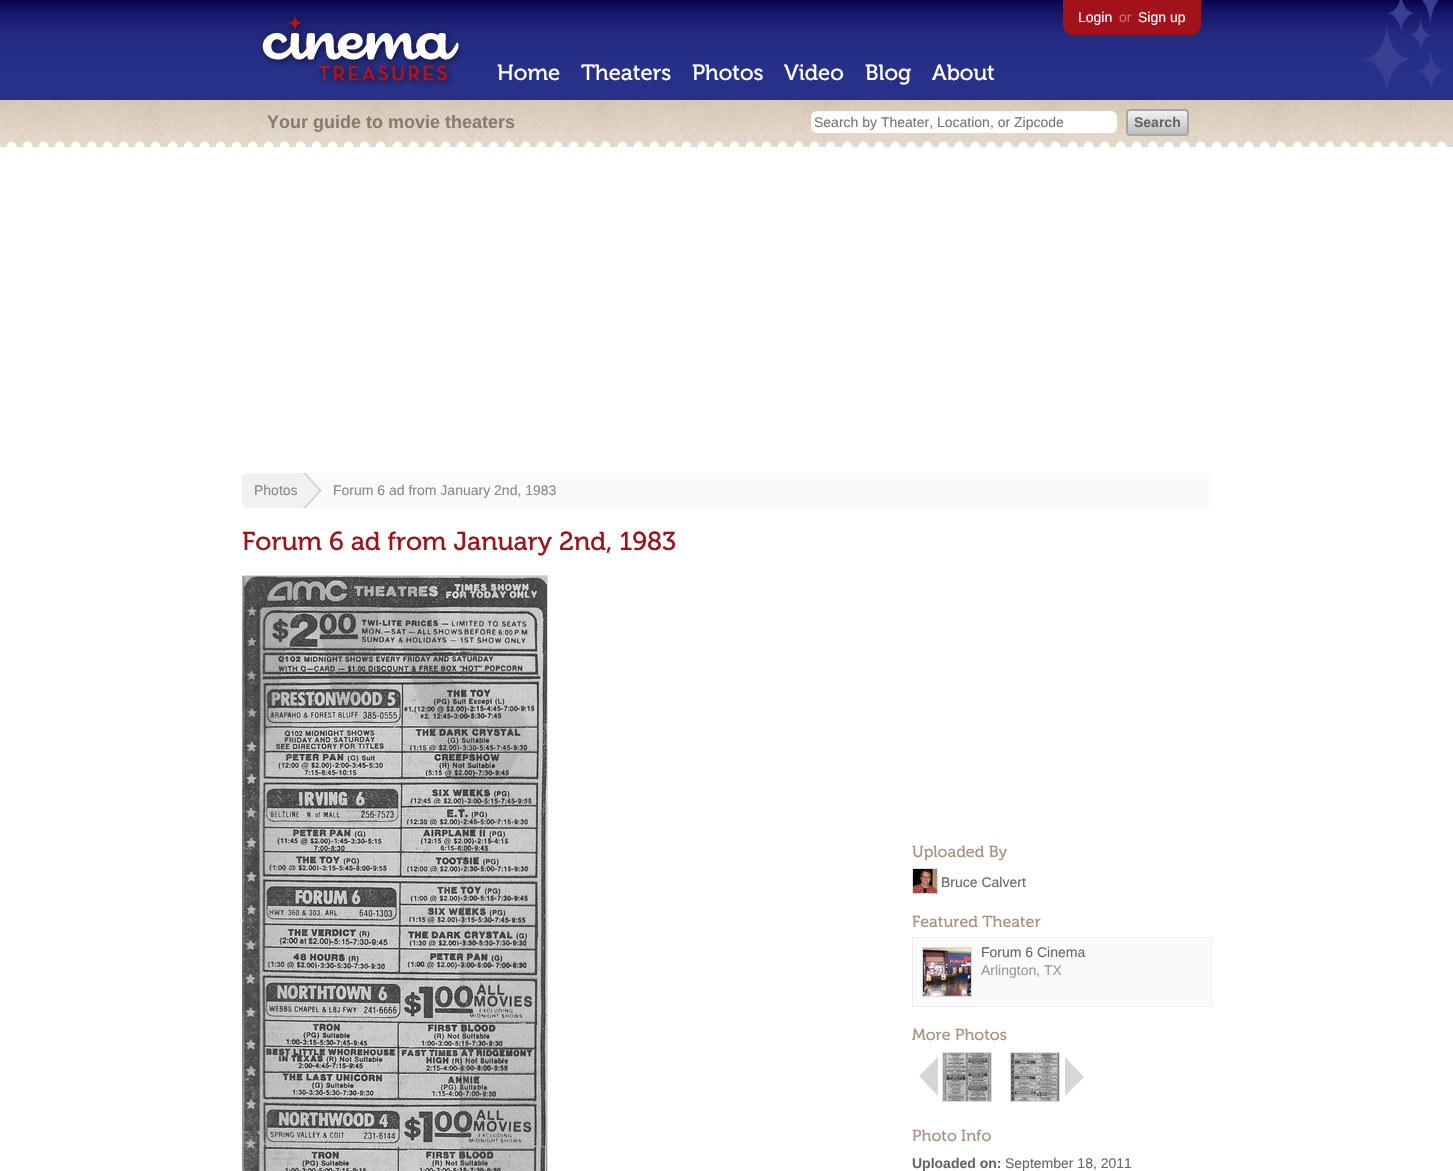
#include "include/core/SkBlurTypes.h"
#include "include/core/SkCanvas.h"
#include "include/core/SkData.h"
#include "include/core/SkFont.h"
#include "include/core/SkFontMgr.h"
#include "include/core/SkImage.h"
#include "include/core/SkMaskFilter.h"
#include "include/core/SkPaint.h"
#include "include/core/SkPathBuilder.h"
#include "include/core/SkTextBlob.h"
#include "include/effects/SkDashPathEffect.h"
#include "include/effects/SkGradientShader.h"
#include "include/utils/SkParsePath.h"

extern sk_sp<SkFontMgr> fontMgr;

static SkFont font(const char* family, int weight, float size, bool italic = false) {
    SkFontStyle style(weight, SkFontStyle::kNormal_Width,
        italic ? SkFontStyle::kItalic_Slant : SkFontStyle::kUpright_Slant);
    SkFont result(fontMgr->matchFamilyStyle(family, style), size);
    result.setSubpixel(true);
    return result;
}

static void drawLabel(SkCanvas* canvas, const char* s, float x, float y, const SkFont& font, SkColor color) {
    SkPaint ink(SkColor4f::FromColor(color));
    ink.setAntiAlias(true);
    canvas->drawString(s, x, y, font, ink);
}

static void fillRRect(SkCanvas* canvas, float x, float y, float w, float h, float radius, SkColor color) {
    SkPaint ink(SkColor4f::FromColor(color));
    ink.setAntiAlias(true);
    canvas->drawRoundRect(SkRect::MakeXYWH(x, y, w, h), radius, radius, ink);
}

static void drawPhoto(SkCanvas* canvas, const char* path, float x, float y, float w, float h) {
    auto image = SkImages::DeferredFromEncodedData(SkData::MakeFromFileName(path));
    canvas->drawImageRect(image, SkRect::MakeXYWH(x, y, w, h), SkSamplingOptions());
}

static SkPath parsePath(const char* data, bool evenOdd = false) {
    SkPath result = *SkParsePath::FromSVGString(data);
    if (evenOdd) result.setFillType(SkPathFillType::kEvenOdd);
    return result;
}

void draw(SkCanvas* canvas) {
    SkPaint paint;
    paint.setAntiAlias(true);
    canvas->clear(0xFFFFFFFF);
    drawPhoto(canvas, "assets/img1.png", 0, 0, 1453, 100);
    drawPhoto(canvas, "assets/img2.png", 259, 15, 206, 73);
    SkFont font1 = font("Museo", 400, 22);
    drawLabel(canvas, "Home", 497, 80, font1, 0xFFFFFFFF);
    drawLabel(canvas, "Theaters", 581, 80, font1, 0xFFFFFFFF);
    drawLabel(canvas, "Photos", 692, 80, font1, 0xFFFFFFFF);
    drawLabel(canvas, "Video", 784, 80, font1, 0xFFFFFFFF);
    drawLabel(canvas, "Blog", 865, 80, font1, 0xFFFFFFFF);
    drawLabel(canvas, "About", 932, 80, font1, 0xFFFFFFFF);
    paint.setColor(0xFFA3121B);
    canvas->drawPath(parsePath("M1063 0H1201V25C1201 30.5 1196.5 35 1191 35H1073C1067.5 35 1063 30.5 1063 25Z"), paint);
    SkFont font2 = font("Liberation Sans", 400, 14);
    drawLabel(canvas, "Login", 1078, 22, font2, 0xFFFFFFFF);
    drawLabel(canvas, "or", 1119, 22, font2, 0xFFC87176);
    drawLabel(canvas, "Sign up", 1138, 22, font2, 0xFFFFFFFF);
    drawPhoto(canvas, "assets/img3.png", 1363, 0, 81, 93);
    drawPhoto(canvas, "assets/img4.png", 0, 100, 1453, 48);
    SkFont font3 = font("Liberation Sans", 700, 18);
    drawLabel(canvas, "Your guide to movie theaters", 267, 128, font3, 0xFF857D74);
    fillRRect(canvas, 811, 111, 306, 22, 6, 0xFFFFFFFF);
    drawLabel(canvas, "Search by Theater, Location, or Zipcode", 814, 127, font2, 0xFF757575);
    {
        const SkColor colors[] = {0xFFF2F2F2, 0xFFBDBDBD};
        const float stops[] = {0, 1};
        const SkPoint ends[] = {{1158, 111}, {1158, 134}};
        paint.setShader(SkGradientShader::MakeLinear(ends, colors, stops, 2, SkTileMode::kClamp));
        paint.setAlpha(255);
    }
    canvas->drawRoundRect(SkRect::MakeXYWH(1128, 111, 59, 23), 2, 2, paint);
    paint.setStroke(true);
    paint.setStrokeWidth(2);
    paint.setShader(nullptr);
    paint.setColor(0xFFA6A6A6);
    canvas->drawRoundRect(SkRect::MakeXYWH(1127, 110, 61, 25), 3, 3, paint);
    SkFont font4 = font("Liberation Sans", 700, 14);
    drawLabel(canvas, "Search", 1134, 127, font4, 0xFF666666);
    fillRRect(canvas, 242, 473, 970, 35, 6, 0xFFFAFAFA);
    paint.setStroke(false);
    paint.setColor(0xFFF1F1F1);
    canvas->drawPath(parsePath("M248 473H321V508H248C244.5 508 242 505.5 242 502V479C242 475.5 244.5 473 248 473Z"), paint);
    drawPhoto(canvas, "assets/img5.png", 303, 473, 18, 35);
    drawLabel(canvas, "Photos", 254, 495, font2, 0xFF888888);
    drawLabel(canvas, "Forum 6 ad from January 2nd, 1983", 333, 495, font2, 0xFF888888);
    SkFont font5 = font("Museo", 400, 26);
    drawLabel(canvas, "Forum 6 ad from January 2nd, 1983", 242, 550, font5, 0xFFA3121B);
    drawPhoto(canvas, "assets/img6.png", 242, 576, 305, 595);
    canvas->save();
    canvas->clipRect(SkRect::MakeXYWH(242, 172, 970, 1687));
    paint.setStroke(true);
    paint.setStrokeWidth(1);
    paint.setColor(0xFFDDDDDD);
    canvas->drawRect(SkRect::MakeXYWH(241.5f, 575.5f, 306, 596), paint);
    canvas->restore();
    SkFont font6 = font("Museo", 400, 16);
    drawLabel(canvas, "Uploaded By", 912, 857, font6, 0xFFA99382);
    canvas->drawRect(SkRect::MakeXYWH(912.5f, 868.5f, 25, 25), paint);
    drawPhoto(canvas, "assets/img7.png", 913, 869, 24, 24);
    drawLabel(canvas, "Bruce Calvert", 941, 887, font2, 0xFF666666);
    drawLabel(canvas, "Featured Theater", 912, 927, font6, 0xFFA99382);
    paint.setStroke(false);
    paint.setColor(0xFFFAFAFA);
    canvas->drawRect(SkRect::MakeXYWH(912.5f, 937.5f, 299, 69), paint);
    paint.setStroke(true);
    paint.setColor(0xFFEEEEEE);
    canvas->drawRect(SkRect::MakeXYWH(912.5f, 937.5f, 299, 69), paint);
    paint.setColor(0xFFDDDDDD);
    canvas->drawRect(SkRect::MakeXYWH(922.5f, 947.5f, 49, 49), paint);
    drawPhoto(canvas, "assets/img8.png", 923, 948, 48, 48);
    drawLabel(canvas, "Forum 6 Cinema", 981, 957, font2, 0xFF666666);
    drawLabel(canvas, "Arlington, TX", 981, 975, font2, 0xFF999999);
    drawLabel(canvas, "More Photos", 912, 1040, font6, 0xFFA99382);
    canvas->drawRect(SkRect::MakeXYWH(942.5f, 1052.5f, 49, 49), paint);
    drawPhoto(canvas, "assets/img9.png", 919, 1057, 19, 39);
    drawPhoto(canvas, "assets/img10.png", 943, 1053, 48, 48);
    canvas->drawRect(SkRect::MakeXYWH(1010.5f, 1052.5f, 49, 49), paint);
    drawPhoto(canvas, "assets/img11.png", 1011, 1053, 48, 48);
    drawPhoto(canvas, "assets/img12.png", 1065, 1057, 19, 39);
    drawLabel(canvas, "Photo Info", 912, 1141, font6, 0xFFA99382);
    drawLabel(canvas, "Uploaded on:", 912, 1168, font4, 0xFF666666);
    drawLabel(canvas, "September 18, 2011", 1005, 1168, font2, 0xFF666666);
}
